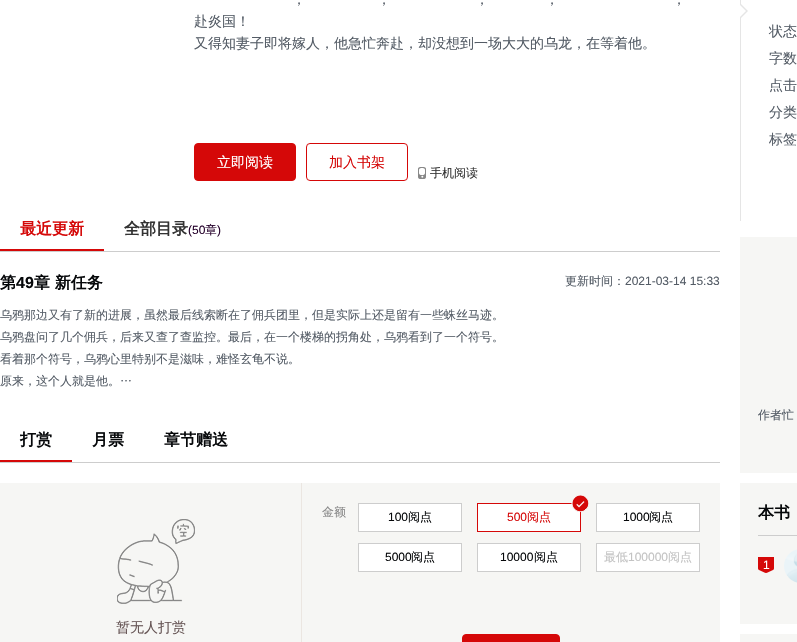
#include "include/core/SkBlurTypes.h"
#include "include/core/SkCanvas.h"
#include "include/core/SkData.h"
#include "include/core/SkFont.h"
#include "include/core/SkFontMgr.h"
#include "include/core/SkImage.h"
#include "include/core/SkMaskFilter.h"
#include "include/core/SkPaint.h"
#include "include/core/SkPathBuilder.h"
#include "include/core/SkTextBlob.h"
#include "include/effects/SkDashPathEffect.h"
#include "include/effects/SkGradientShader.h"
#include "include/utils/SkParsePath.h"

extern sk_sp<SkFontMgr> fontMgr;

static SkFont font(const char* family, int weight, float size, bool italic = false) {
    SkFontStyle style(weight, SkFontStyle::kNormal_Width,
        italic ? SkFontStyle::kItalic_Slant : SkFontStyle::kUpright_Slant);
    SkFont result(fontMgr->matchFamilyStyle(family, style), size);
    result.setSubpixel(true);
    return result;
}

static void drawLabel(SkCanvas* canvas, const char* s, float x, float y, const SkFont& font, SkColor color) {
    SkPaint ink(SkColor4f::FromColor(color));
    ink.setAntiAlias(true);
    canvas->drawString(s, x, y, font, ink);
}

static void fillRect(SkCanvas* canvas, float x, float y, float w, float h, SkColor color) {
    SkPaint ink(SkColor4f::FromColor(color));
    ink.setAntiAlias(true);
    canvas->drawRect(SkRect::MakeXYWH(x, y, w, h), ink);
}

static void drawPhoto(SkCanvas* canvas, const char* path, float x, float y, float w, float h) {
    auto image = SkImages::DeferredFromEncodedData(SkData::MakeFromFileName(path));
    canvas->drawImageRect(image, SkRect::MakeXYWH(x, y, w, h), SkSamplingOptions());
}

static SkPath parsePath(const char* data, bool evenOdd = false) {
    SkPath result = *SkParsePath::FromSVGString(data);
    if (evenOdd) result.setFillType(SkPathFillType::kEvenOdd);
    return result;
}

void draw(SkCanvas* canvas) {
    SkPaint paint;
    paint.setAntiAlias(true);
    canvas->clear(0xFFFFFFFF);
    SkFont font1 = font("WenQuanYi Zen Hei", 500, 14);
    drawLabel(canvas, "，", 292, 4, font1, 0xFF545C66);
    drawLabel(canvas, "，", 377, 4, font1, 0xFF545C66);
    drawLabel(canvas, "，", 475, 4, font1, 0xFF545C66);
    drawLabel(canvas, "，", 545, 4, font1, 0xFF545C66);
    drawLabel(canvas, "，", 672, 4, font1, 0xFF545C66);
    drawLabel(canvas, "赴炎国！", 194, 26, font1, 0xFF545C66);
    drawLabel(canvas, "又得知妻子即将嫁人，他急忙奔赴，却没想到一场大大的乌龙，在等着他。", 194, 48, font1, 0xFF545C66);
    paint.setColor(0xFFD50808);
    canvas->drawRoundRect(SkRect::MakeXYWH(194.5f, 143.5f, 101, 37), 3.5f, 3.5f, paint);
    paint.setStroke(true);
    paint.setStrokeWidth(1);
    canvas->drawRoundRect(SkRect::MakeXYWH(194.5f, 143.5f, 101, 37), 3.5f, 3.5f, paint);
    drawLabel(canvas, "立即阅读", 217, 167, font1, 0xFFFFFFFF);
    canvas->drawRoundRect(SkRect::MakeXYWH(306.5f, 143.5f, 101, 37), 3.5f, 3.5f, paint);
    drawLabel(canvas, "加入书架", 329, 167, font1, 0xFFD50808);
    drawPhoto(canvas, "assets/img1.png", 418, 167, 8, 12);
    SkFont font2 = font("WenQuanYi Zen Hei", 500, 12);
    drawLabel(canvas, "手机阅读", 430, 177, font2, 0xFF333333);
    fillRect(canvas, 0, 251, 720, 1, 0xFFCDCDCD);
    fillRect(canvas, 0, 249, 104, 2, 0xFFD50808);
    SkFont font3 = font("WenQuanYi Zen Hei", 700, 16);
    drawLabel(canvas, "最近更新", 20, 234, font3, 0xFFD50808);
    drawLabel(canvas, "全部目录", 124, 234, font3, 0xFF333333);
    SkFont font4 = font("Liberation Sans", 400, 12);
    drawLabel(canvas, "(50", 188, 234, font4, 0xFF24002A);
    drawLabel(canvas, "章", 205, 234, font2, 0xFF24002A);
    drawLabel(canvas, ")", 217, 234, font4, 0xFF24002A);
    drawLabel(canvas, "第", 0, 288, font3, 0xFF06080A);
    SkFont font5 = font("Liberation Sans", 700, 16);
    drawLabel(canvas, "49", 16, 288, font5, 0xFF06080A);
    drawLabel(canvas, "章 新任务", 34, 288, font3, 0xFF06080A);
    drawLabel(canvas, "更新时间：", 565, 285, font2, 0xFF545C66);
    drawLabel(canvas, "2021-03-14 15:33", 625, 285, font4, 0xFF545C66);
    drawLabel(canvas, "乌鸦那边又有了新的进展，虽然最后线索断在了佣兵团里，但是实际上还是留有一些蛛丝马迹。", 0, 319, font2, 0xFF545C66);
    drawLabel(canvas, "乌鸦盘问了几个佣兵，后来又查了查监控。最后，在一个楼梯的拐角处，乌鸦看到了一个符号。", 0, 341, font2, 0xFF545C66);
    drawLabel(canvas, "看着那个符号，乌鸦心里特别不是滋味，难怪玄龟不说。", 0, 363, font2, 0xFF545C66);
    drawLabel(canvas, "原来，这个人就是他。…", 0, 385, font2, 0xFF545C66);
    fillRect(canvas, 0, 462, 720, 1, 0xFFCDCDCD);
    drawLabel(canvas, "打赏", 20, 445, font3, 0xFF06080A);
    drawLabel(canvas, "月票", 92, 445, font3, 0xFF06080A);
    drawLabel(canvas, "章节赠送", 164, 445, font3, 0xFF06080A);
    fillRect(canvas, 0, 460, 72, 2, 0xFFD50808);
    fillRect(canvas, 0, 483, 720, 159, 0xFFF6F6F4);
    drawLabel(canvas, "金额", 322, 516, font2, 0xFF888888);
    paint.setStroke(false);
    paint.setColor(0xFFFFFFFF);
    canvas->drawRect(SkRect::MakeXYWH(358.5f, 503.5f, 103, 28), paint);
    paint.setStroke(true);
    paint.setColor(0xFFCDCDCD);
    canvas->drawRect(SkRect::MakeXYWH(358.5f, 503.5f, 103, 28), paint);
    drawLabel(canvas, "100", 388, 521, font4, 0xFF06080A);
    drawLabel(canvas, "阅点", 408, 521, font2, 0xFF06080A);
    paint.setStroke(false);
    paint.setColor(0xFFFFFFFF);
    canvas->drawRect(SkRect::MakeXYWH(477.5f, 503.5f, 103, 28), paint);
    paint.setStroke(true);
    paint.setColor(0xFFD50808);
    canvas->drawRect(SkRect::MakeXYWH(477.5f, 503.5f, 103, 28), paint);
    drawPhoto(canvas, "assets/img2.png", 571, 495, 18, 17);
    drawLabel(canvas, "500", 507, 521, font4, 0xFFD50808);
    drawLabel(canvas, "阅点", 527, 521, font2, 0xFFD50808);
    paint.setStroke(false);
    paint.setColor(0xFFFFFFFF);
    canvas->drawRect(SkRect::MakeXYWH(596.5f, 503.5f, 103, 28), paint);
    paint.setStroke(true);
    paint.setColor(0xFFCDCDCD);
    canvas->drawRect(SkRect::MakeXYWH(596.5f, 503.5f, 103, 28), paint);
    drawLabel(canvas, "1000", 623, 521, font4, 0xFF06080A);
    drawLabel(canvas, "阅点", 649, 521, font2, 0xFF06080A);
    paint.setStroke(false);
    paint.setColor(0xFFFFFFFF);
    canvas->drawRect(SkRect::MakeXYWH(358.5f, 543.5f, 103, 28), paint);
    paint.setStroke(true);
    paint.setColor(0xFFCDCDCD);
    canvas->drawRect(SkRect::MakeXYWH(358.5f, 543.5f, 103, 28), paint);
    drawLabel(canvas, "5000", 385, 561, font4, 0xFF06080A);
    drawLabel(canvas, "阅点", 411, 561, font2, 0xFF06080A);
    paint.setStroke(false);
    paint.setColor(0xFFFFFFFF);
    canvas->drawRect(SkRect::MakeXYWH(477.5f, 543.5f, 103, 28), paint);
    paint.setStroke(true);
    paint.setColor(0xFFCDCDCD);
    canvas->drawRect(SkRect::MakeXYWH(477.5f, 543.5f, 103, 28), paint);
    drawLabel(canvas, "10000", 500, 561, font4, 0xFF06080A);
    drawLabel(canvas, "阅点", 534, 561, font2, 0xFF06080A);
    paint.setStroke(false);
    paint.setColor(0xFFFFFFFF);
    canvas->drawRect(SkRect::MakeXYWH(596.5f, 543.5f, 103, 28), paint);
    paint.setStroke(true);
    paint.setColor(0xFFCDCDCD);
    canvas->drawRect(SkRect::MakeXYWH(596.5f, 543.5f, 103, 28), paint);
    drawLabel(canvas, "最低", 604, 561, font2, 0xFFC3C3C3);
    drawLabel(canvas, "100000", 628, 561, font4, 0xFFC3C3C3);
    drawLabel(canvas, "阅点", 668, 561, font2, 0xFFC3C3C3);
    paint.setStroke(false);
    paint.setColor(0xFFD50808);
    canvas->drawRoundRect(SkRect::MakeXYWH(462.5f, 634.5f, 97, 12), 3.5f, 3.5f, paint);
    paint.setStroke(true);
    canvas->drawRoundRect(SkRect::MakeXYWH(462.5f, 634.5f, 97, 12), 3.5f, 3.5f, paint);
    fillRect(canvas, 301, 483, 1, 159, 0xFFEBE6E1);
    drawPhoto(canvas, "assets/img3.png", 117, 519, 78, 85);
    drawLabel(canvas, "暂无人打赏", 116, 632, font1, 0xFF665555);
    fillRect(canvas, 740, 0, 1, 221, 0xFFE5E5E5);
    paint.setStroke(false);
    paint.setColor(0xFFE5E5E5);
    canvas->drawPath(parsePath("M741 18V4L748 11Z"), paint);
    paint.setColor(0xFFFFFFFF);
    canvas->drawPath(parsePath("M740 17V5L746 11Z"), paint);
    drawLabel(canvas, "状态", 769, 36, font1, 0xFF545C66);
    drawLabel(canvas, "字数", 769, 63, font1, 0xFF545C66);
    drawLabel(canvas, "点击", 769, 90, font1, 0xFF545C66);
    drawLabel(canvas, "分类", 769, 117, font1, 0xFF545C66);
    drawLabel(canvas, "标签", 769, 144, font1, 0xFF545C66);
    fillRect(canvas, 740, 237, 57, 236, 0xFFF6F6F4);
    drawLabel(canvas, "作者忙", 758, 419, font2, 0xFF545C66);
    fillRect(canvas, 740, 483, 57, 141, 0xFFF6F6F4);
    fillRect(canvas, 758, 535, 39, 1, 0xFFCDCDCD);
    drawLabel(canvas, "本书", 758, 518, font3, 0xFF06080A);
    drawPhoto(canvas, "assets/img4.png", 758, 557, 16, 16);
    drawLabel(canvas, "1", 763, 569, font4, 0xFFFFFFFF);
    drawPhoto(canvas, "assets/img5.png", 784, 549, 13, 34);
    fillRect(canvas, 740, 634, 57, 8, 0xFFF6F6F4);
}
